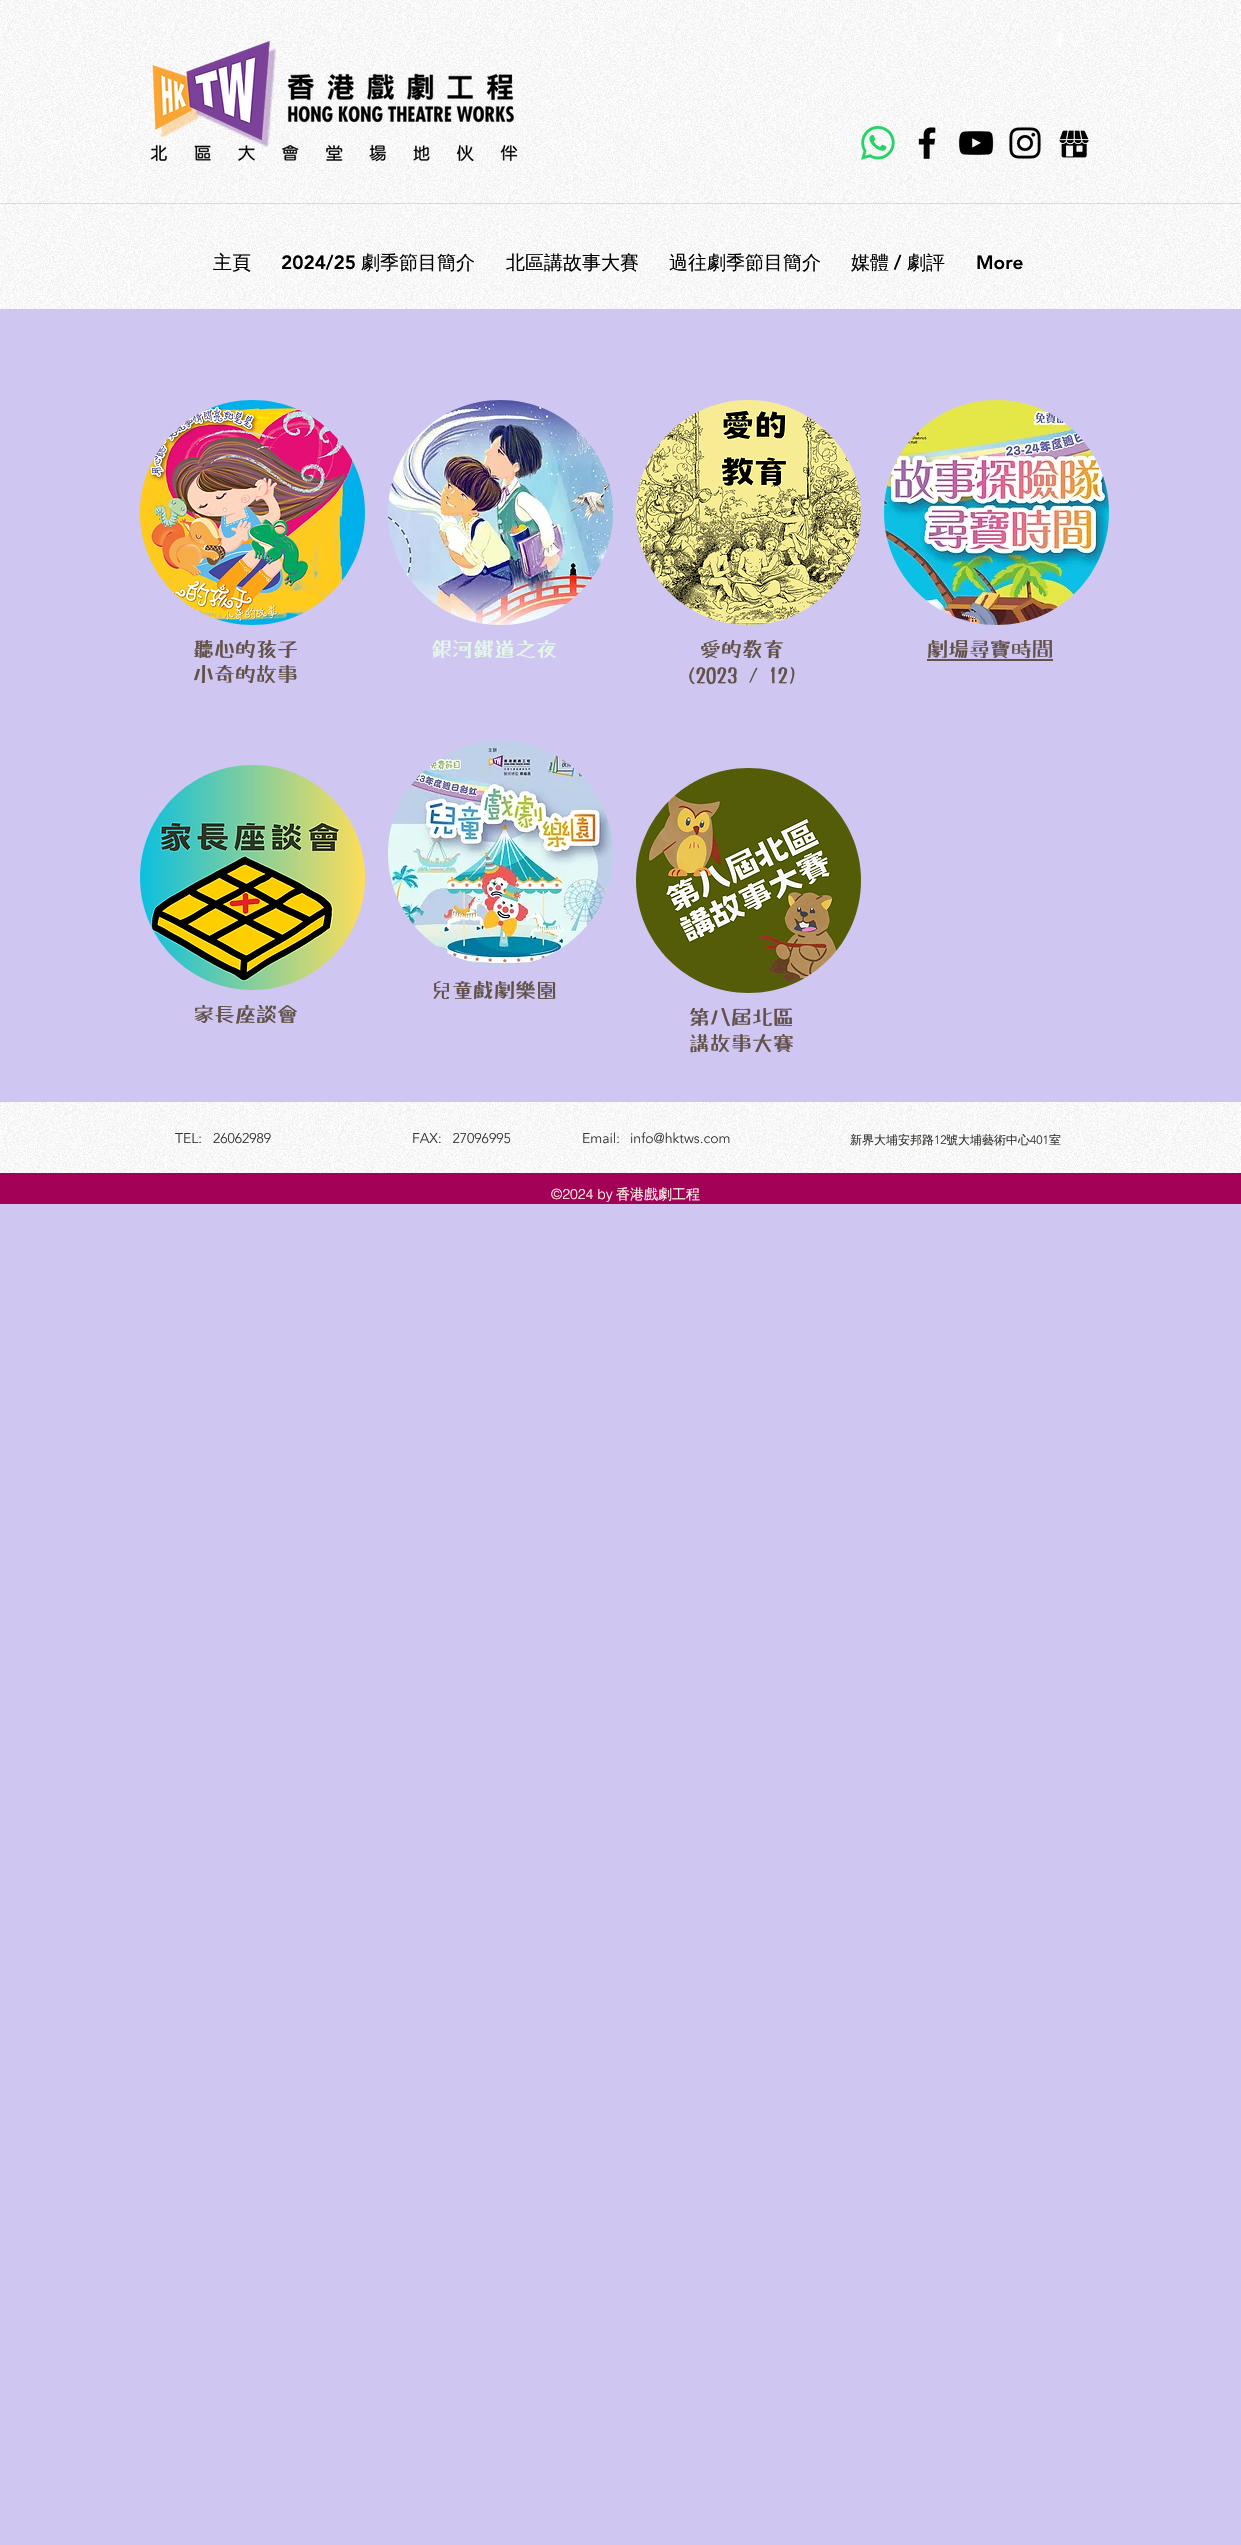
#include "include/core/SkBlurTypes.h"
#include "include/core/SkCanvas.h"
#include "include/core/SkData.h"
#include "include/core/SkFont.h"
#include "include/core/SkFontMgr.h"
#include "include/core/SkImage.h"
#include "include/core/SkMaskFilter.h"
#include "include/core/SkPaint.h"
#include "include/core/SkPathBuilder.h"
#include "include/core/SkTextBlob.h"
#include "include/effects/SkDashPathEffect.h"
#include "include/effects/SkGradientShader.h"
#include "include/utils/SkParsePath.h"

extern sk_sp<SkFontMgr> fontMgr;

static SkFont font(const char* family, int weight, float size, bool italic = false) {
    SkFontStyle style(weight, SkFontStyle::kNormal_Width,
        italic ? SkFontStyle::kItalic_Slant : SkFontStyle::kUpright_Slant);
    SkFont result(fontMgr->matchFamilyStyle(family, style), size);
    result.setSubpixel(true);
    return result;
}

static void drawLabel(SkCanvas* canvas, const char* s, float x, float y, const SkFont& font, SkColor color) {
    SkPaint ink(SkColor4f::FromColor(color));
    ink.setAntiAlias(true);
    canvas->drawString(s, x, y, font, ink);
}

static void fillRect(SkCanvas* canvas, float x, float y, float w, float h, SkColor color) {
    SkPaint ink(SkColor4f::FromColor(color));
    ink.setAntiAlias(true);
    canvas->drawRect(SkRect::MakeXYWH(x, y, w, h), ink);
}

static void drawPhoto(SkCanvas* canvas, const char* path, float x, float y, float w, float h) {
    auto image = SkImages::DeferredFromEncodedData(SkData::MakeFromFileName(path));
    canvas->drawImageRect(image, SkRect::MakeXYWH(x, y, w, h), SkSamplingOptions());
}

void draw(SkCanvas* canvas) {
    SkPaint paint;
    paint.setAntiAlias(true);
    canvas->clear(0xFFCFC7F2);
    fillRect(canvas, 0, 0, 1241, 309, 0xFFFFFFFF);
    drawPhoto(canvas, "assets/img1.png", 0, 0, 1241, 309);
    drawPhoto(canvas, "assets/img2.png", 150, 40, 368, 122);
    drawPhoto(canvas, "assets/img3.png", 1056, 33, 8, 15);
    drawPhoto(canvas, "assets/img4.png", 861, 125, 34, 35);
    drawPhoto(canvas, "assets/img5.png", 918, 127, 18, 32);
    drawPhoto(canvas, "assets/img6.png", 959, 131, 35, 24);
    drawPhoto(canvas, "assets/img7.png", 1009, 127, 32, 32);
    drawPhoto(canvas, "assets/img8.png", 1059, 130, 30, 28);
    fillRect(canvas, 0, 203, 1241, 1, 0x2633322E);
    SkFont font1 = font("WenQuanYi Zen Hei", 500, 19);
    drawLabel(canvas, "主頁", 213, 269, font1, 0xFF000000);
    SkFont font2 = font("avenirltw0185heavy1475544", 900, 19);
    drawLabel(canvas, "2024/25", 281, 269, font2, 0xFF000000);
    drawLabel(canvas, "劇季節目簡介", 361, 269, font1, 0xFF000000);
    drawLabel(canvas, "北區講故事大賽", 506, 269, font1, 0xFF000000);
    drawLabel(canvas, "過往劇季節目簡介", 669, 269, font1, 0xFF000000);
    drawLabel(canvas, "媒體", 851, 269, font1, 0xFF000000);
    drawLabel(canvas, "/", 894, 269, font2, 0xFF000000);
    drawLabel(canvas, "劇評", 907, 269, font1, 0xFF000000);
    drawLabel(canvas, "More", 976, 269, font2, 0xFF000000);
    drawPhoto(canvas, "assets/img9.png", 140, 400, 225, 225);
    SkFont font3 = font("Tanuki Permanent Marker", 400, 21);
    drawLabel(canvas, "聽心的孩子", 193, 657, font3, 0xFF635249);
    drawLabel(canvas, "小奇的故事", 193, 682, font3, 0xFF635249);
    drawPhoto(canvas, "assets/img10.png", 140, 765, 225, 225);
    drawLabel(canvas, "家長座談會", 193, 1022, font3, 0xFF635249);
    drawPhoto(canvas, "assets/img11.png", 388, 400, 225, 225);
    drawLabel(canvas, "銀河鐵道之夜", 431, 657, font3, 0xFFE4F7E9);
    drawPhoto(canvas, "assets/img12.png", 388, 741, 225, 225);
    drawLabel(canvas, "兒童戲劇樂園", 431, 998, font3, 0xFF635249);
    drawPhoto(canvas, "assets/img13.png", 636, 400, 225, 225);
    drawLabel(canvas, "愛的教育", 700, 657, font3, 0xFF635249);
    drawLabel(canvas, "(2023 / 12)", 685, 683, font3, 0xFF635249);
    drawPhoto(canvas, "assets/img14.png", 636, 768, 225, 225);
    drawLabel(canvas, "第八屆北區", 689, 1025, font3, 0xFF635249);
    drawLabel(canvas, "講故事大賽", 689, 1051, font3, 0xFF635249);
    drawPhoto(canvas, "assets/img15.png", 884, 400, 225, 225);
    drawLabel(canvas, "劇場尋寶時間", 927, 657, font3, 0xFF635249);
    fillRect(canvas, 927, 659, 126, 2, 0xFF635249);
    fillRect(canvas, 0, 1102, 1241, 71, 0xFFFFFFFF);
    drawPhoto(canvas, "assets/img16.png", 0, 1102, 1241, 71);
    SkFont font4 = font("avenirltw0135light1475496", 300, 14);
    drawLabel(canvas, "TEL:   26062989", 175, 1143, font4, 0xFF33322E);
    drawLabel(canvas, "FAX:   27096995", 412, 1143, font4, 0xFF33322E);
    drawLabel(canvas, "Email:", 582, 1143, font4, 0xFF33322E);
    drawLabel(canvas, "info@hktws.com", 630, 1143, font4, 0xFF33322E);
    SkFont font5 = font("WenQuanYi Zen Hei", 500, 12);
    drawLabel(canvas, "新界大埔安邦路", 850, 1144, font5, 0xFF33322E);
    SkFont font6 = font("avenirltw0135light1475496", 300, 12);
    drawLabel(canvas, "12", 934, 1144, font6, 0xFF33322E);
    drawLabel(canvas, "號大埔藝術中心", 946, 1144, font5, 0xFF33322E);
    drawLabel(canvas, "401", 1030, 1144, font6, 0xFF33322E);
    drawLabel(canvas, "室", 1049, 1144, font5, 0xFF33322E);
    fillRect(canvas, 0, 1173, 1241, 31, 0xFFA30057);
    SkFont font7 = font("helvetica", 300, 14);
    drawLabel(canvas, "©2024 by", 551, 1199, font7, 0xFFFFFBE7);
    SkFont font8 = font("WenQuanYi Zen Hei", 500, 14);
    drawLabel(canvas, "香港戲劇工程", 616, 1199, font8, 0xFFFFFBE7);
}
